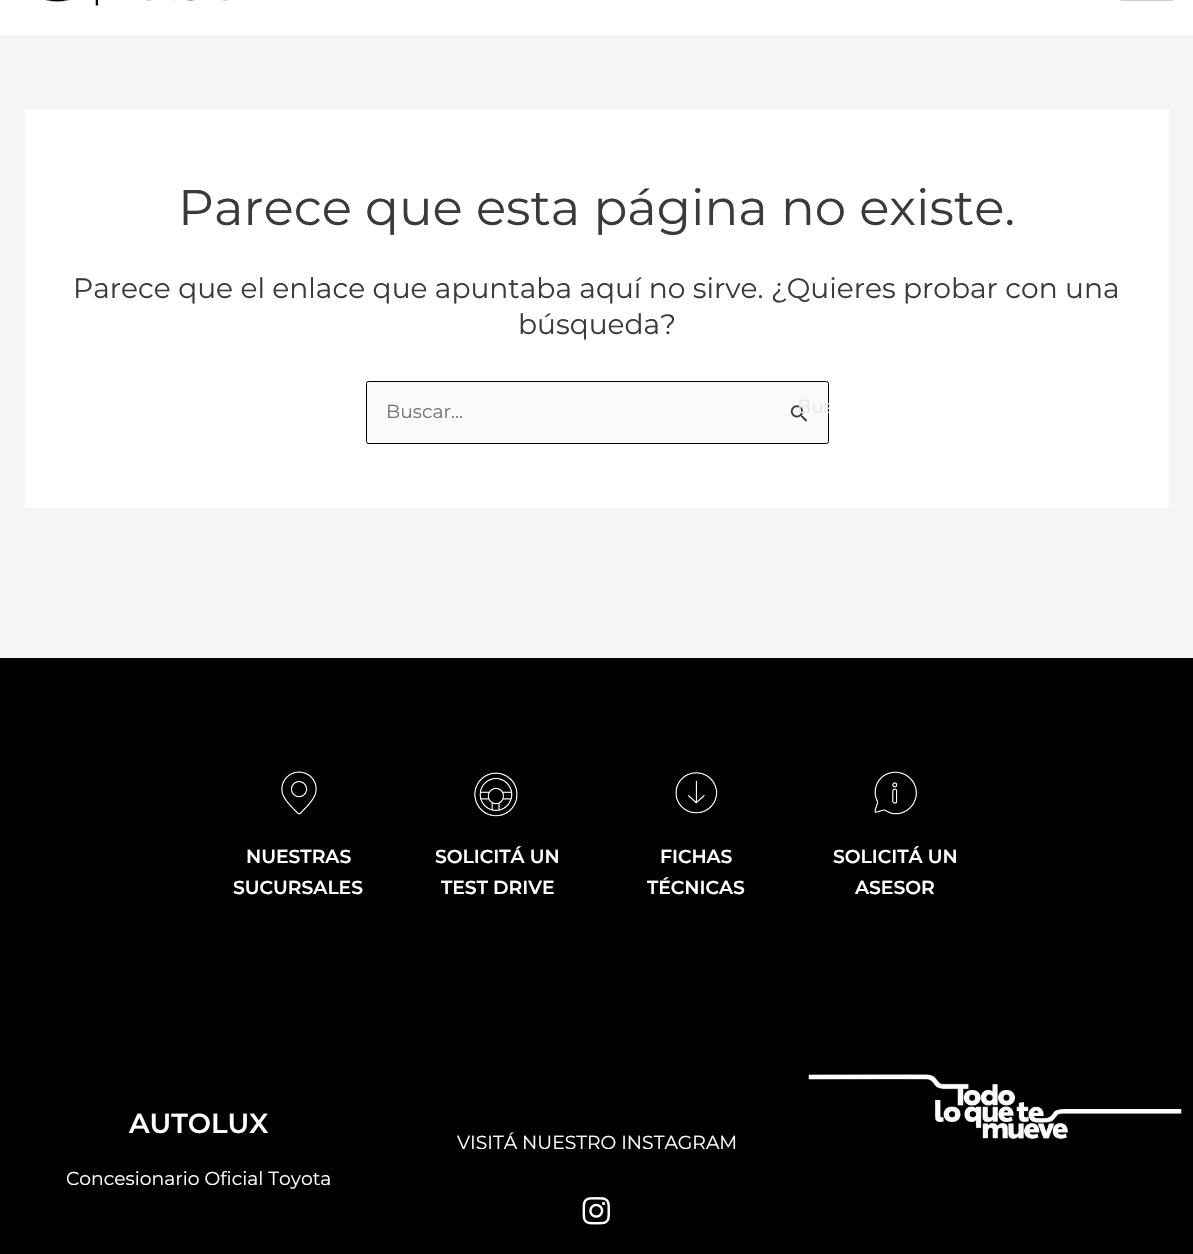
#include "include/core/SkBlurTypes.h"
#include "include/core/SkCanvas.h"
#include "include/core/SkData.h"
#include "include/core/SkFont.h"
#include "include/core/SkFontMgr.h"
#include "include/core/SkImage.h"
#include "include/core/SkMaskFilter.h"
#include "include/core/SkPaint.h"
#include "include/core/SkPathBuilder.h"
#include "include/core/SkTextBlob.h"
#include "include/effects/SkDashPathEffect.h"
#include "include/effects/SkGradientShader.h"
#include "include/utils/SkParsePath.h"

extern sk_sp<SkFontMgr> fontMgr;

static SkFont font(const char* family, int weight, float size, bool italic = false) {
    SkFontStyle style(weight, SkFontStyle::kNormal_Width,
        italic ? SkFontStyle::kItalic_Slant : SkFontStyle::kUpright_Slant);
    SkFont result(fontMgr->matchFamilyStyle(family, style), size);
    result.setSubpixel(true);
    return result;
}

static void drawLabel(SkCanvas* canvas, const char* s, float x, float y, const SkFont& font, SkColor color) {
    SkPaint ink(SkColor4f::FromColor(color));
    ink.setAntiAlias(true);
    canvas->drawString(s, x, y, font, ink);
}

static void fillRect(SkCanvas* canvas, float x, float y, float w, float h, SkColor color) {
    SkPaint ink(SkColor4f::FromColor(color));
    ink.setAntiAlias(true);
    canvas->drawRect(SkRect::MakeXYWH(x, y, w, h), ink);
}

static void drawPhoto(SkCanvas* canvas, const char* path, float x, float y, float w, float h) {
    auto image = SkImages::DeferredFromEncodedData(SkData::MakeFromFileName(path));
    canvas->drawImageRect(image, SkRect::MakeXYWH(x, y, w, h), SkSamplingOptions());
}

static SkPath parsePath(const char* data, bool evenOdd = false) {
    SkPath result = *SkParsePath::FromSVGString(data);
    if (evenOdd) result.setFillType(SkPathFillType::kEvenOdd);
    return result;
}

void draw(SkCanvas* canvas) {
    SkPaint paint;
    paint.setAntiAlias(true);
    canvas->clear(0xFFF5F5F5);
    fillRect(canvas, 0, 0, 1193, 35, 0xFFFFFFFF);
    paint.setStroke(true);
    paint.setStrokeWidth(1);
    paint.setColor(0xFFCCCCCC);
    canvas->drawRoundRect(SkRect::MakeXYWH(1119.5f, -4.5f, 55, 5), 3.5f, 3.5f, paint);
    drawPhoto(canvas, "assets/img1.png", 45, 0, 183, 6);
    fillRect(canvas, 25, 110, 1144, 398, 0xFFFFFFFF);
    SkFont font1 = font("Montserrat", 400, 50);
    drawLabel(canvas, "Parece que esta página no existe.", 178, 225, font1, 0xFF3A3A3A);
    SkFont font2 = font("Montserrat", 400, 28.1f);
    drawLabel(canvas, "Parece que el enlace que apuntaba aquí no sirve. ¿Quieres probar con una", 73, 298, font2, 0xFF3A3A3A);
    drawLabel(canvas, "búsqueda?", 518, 334, font2, 0xFF3A3A3A);
    paint.setStroke(false);
    paint.setColor(0xFFFAFAFA);
    canvas->drawRoundRect(SkRect::MakeXYWH(366.5f, 381.5f, 462, 62), 2, 2, paint);
    paint.setStroke(true);
    paint.setColor(0xFF000000);
    canvas->drawRoundRect(SkRect::MakeXYWH(366.5f, 381.5f, 462, 62), 2, 2, paint);
    SkFont font3 = font("Montserrat", 400, 18.75f);
    drawLabel(canvas, "Buscar...", 386, 418, font3, 0xFF757575);
    drawPhoto(canvas, "assets/img2.png", 790, 405, 18, 17);
    canvas->save();
    canvas->clipPath(parsePath("M775.5 381H826.5C828 381 829 382 829 383.5V430.5C829 432 828 433 826.5 433H775.5C774 433 773 432 773 430.5V383.5C773 382 774 381 775.5 381Z"), true);
    drawLabel(canvas, "Bus", 797, 413, font3, 0xFFE8E8E8);
    canvas->restore();
    fillRect(canvas, 0, 658, 1193, 596, 0xFF000000);
    drawPhoto(canvas, "assets/img3.png", 281, 771, 36, 44);
    SkFont font4 = font("Montserrat", 600, 18.75f);
    drawLabel(canvas, "NUESTRAS", 246, 863, font4, 0xFFFFFFFF);
    drawLabel(canvas, "SUCURSALES", 233, 894, font4, 0xFFFFFFFF);
    drawPhoto(canvas, "assets/img4.png", 474, 772, 44, 45);
    drawLabel(canvas, "SOLICITÁ UN", 435, 863, font4, 0xFFFFFFFF);
    drawLabel(canvas, "TEST DRIVE", 441, 894, font4, 0xFFFFFFFF);
    drawPhoto(canvas, "assets/img5.png", 675, 772, 43, 42);
    drawLabel(canvas, "FICHAS", 660, 863, font4, 0xFFFFFFFF);
    drawLabel(canvas, "TÉCNICAS", 647, 894, font4, 0xFFFFFFFF);
    drawPhoto(canvas, "assets/img6.png", 874, 771, 43, 44);
    drawLabel(canvas, "SOLICITÁ UN", 833, 863, font4, 0xFFFFFFFF);
    drawLabel(canvas, "ASESOR", 855, 894, font4, 0xFFFFFFFF);
    drawPhoto(canvas, "assets/img7.png", 808, 1074, 374, 65);
    SkFont font5 = font("Montserrat", 600, 27.5f);
    drawLabel(canvas, "AUTOLUX", 129, 1133, font5, 0xFFFFFFFF);
    drawLabel(canvas, "Concesionario Oficial Toyota", 66, 1185, font3, 0xFFFFFFFF);
    drawLabel(canvas, "VISITÁ NUESTRO INSTAGRAM", 457, 1149, font3, 0xFFFFFFFF);
    drawPhoto(canvas, "assets/img8.png", 582, 1197, 28, 28);
}
